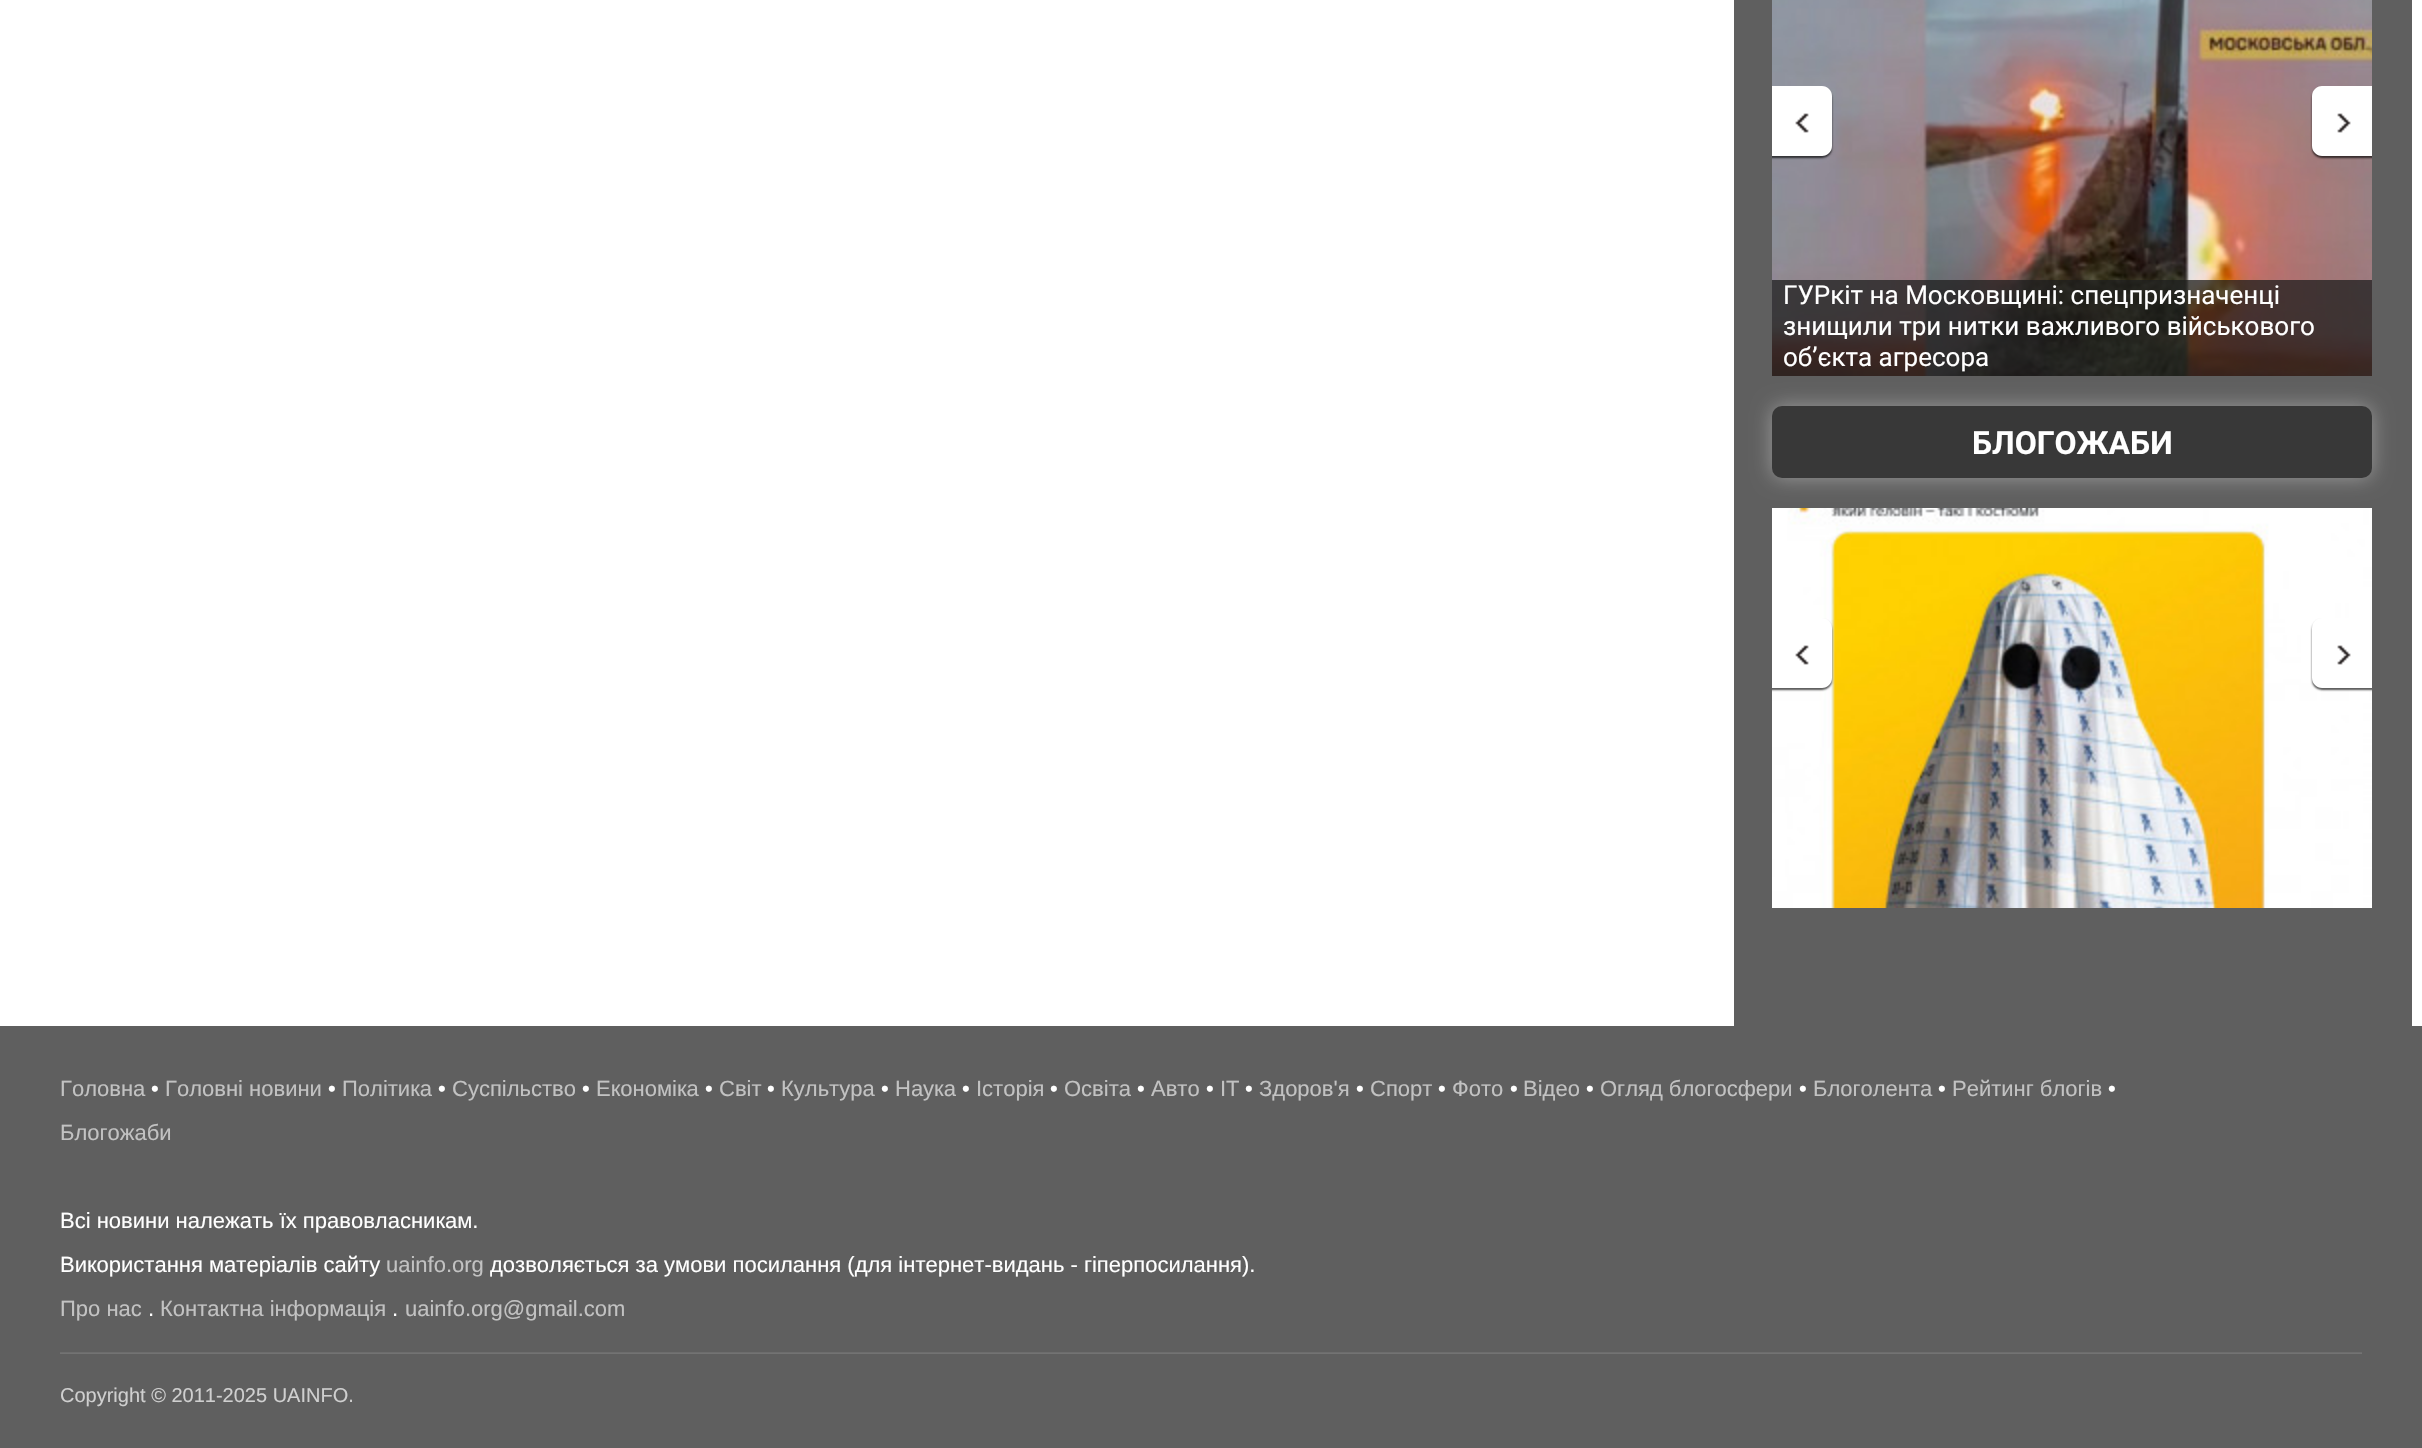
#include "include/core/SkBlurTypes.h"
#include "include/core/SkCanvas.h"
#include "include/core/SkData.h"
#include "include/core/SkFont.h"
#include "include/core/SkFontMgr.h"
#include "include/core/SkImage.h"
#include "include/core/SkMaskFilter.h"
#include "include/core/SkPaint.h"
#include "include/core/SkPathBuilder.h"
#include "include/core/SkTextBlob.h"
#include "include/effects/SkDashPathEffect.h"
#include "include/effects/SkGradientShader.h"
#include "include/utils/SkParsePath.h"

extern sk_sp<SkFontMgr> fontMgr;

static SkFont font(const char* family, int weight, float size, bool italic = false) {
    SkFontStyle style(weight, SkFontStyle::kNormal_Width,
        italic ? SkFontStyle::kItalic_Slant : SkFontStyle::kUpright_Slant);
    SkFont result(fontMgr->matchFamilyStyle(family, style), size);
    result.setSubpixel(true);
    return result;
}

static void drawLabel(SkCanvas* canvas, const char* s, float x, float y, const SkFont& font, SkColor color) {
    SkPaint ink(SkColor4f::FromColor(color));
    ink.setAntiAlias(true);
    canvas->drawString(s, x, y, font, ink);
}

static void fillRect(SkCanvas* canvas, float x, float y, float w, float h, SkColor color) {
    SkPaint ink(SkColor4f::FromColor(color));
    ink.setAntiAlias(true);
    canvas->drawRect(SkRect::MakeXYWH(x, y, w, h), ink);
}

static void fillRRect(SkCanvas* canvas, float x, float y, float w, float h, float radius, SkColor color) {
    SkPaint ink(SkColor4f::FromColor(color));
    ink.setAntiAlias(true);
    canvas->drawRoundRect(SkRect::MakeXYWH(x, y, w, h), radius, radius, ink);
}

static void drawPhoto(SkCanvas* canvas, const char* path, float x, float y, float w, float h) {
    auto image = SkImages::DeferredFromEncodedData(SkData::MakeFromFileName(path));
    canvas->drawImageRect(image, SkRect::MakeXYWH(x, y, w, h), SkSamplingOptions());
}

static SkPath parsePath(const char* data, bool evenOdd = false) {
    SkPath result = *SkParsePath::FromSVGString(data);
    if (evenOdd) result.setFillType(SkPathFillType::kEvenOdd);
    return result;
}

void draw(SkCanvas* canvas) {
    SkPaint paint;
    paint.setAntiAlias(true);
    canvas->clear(0xFFFFFFFF);
    fillRect(canvas, 1734, 0, 678, 1026, 0xFF5F5F5F);
    paint.setColor(0x5EFFFEFE);
    paint.setMaskFilter(SkMaskFilter::MakeBlur(kNormal_SkBlurStyle, 10));
    canvas->drawRoundRect(SkRect::MakeXYWH(1772, 406, 600, 72), 10, 10, paint);
    paint.setMaskFilter(nullptr);
    drawPhoto(canvas, "assets/img3.png", 1772, 0, 600, 376);
    canvas->save();
    canvas->clipRect(SkRect::MakeXYWH(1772, 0, 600, 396));
    paint.setColor(0x66000000);
    paint.setMaskFilter(SkMaskFilter::MakeBlur(kNormal_SkBlurStyle, 1));
    canvas->drawRoundRect(SkRect::MakeXYWH(1752, 88, 80, 70), 10, 10, paint);
    paint.setMaskFilter(nullptr);
    paint.setMaskFilter(SkMaskFilter::MakeBlur(kNormal_SkBlurStyle, 1));
    canvas->drawRoundRect(SkRect::MakeXYWH(2312, 88, 80, 70), 10, 10, paint);
    paint.setMaskFilter(nullptr);
    paint.setMaskFilter(SkMaskFilter::MakeBlur(kNormal_SkBlurStyle, 1));
    canvas->drawRoundRect(SkRect::MakeXYWH(1752, 88, 80, 70), 10, 10, paint);
    paint.setMaskFilter(nullptr);
    canvas->restore();
    paint.setColor(0xFFFFFFFF);
    canvas->drawPath(parsePath("M1772 86H1822C1827.5 86 1832 90.5 1832 96V146C1832 151.5 1827.5 156 1822 156H1772Z"), paint);
    drawPhoto(canvas, "assets/img1.png", 1795, 113, 14, 20);
    canvas->save();
    canvas->clipRect(SkRect::MakeXYWH(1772, 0, 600, 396));
    paint.setColor(0x66000000);
    paint.setMaskFilter(SkMaskFilter::MakeBlur(kNormal_SkBlurStyle, 1));
    canvas->drawRoundRect(SkRect::MakeXYWH(2312, 88, 80, 70), 10, 10, paint);
    paint.setMaskFilter(nullptr);
    canvas->restore();
    paint.setColor(0xFFFFFFFF);
    canvas->drawPath(parsePath("M2322 86H2372V156H2322C2316.5 156 2312 151.5 2312 146V96C2312 90.5 2316.5 86 2322 86Z"), paint);
    drawPhoto(canvas, "assets/img2.png", 2337, 113, 14, 20);
    fillRect(canvas, 1772, 280, 600, 96, 0xBF1E1E1E);
    SkFont font1 = font("Roboto", 400, 26);
    drawLabel(canvas, "ГУРкіт на Московщині: спецпризначенці", 1783, 304, font1, 0xFFFFFFFF);
    drawLabel(canvas, "знищили три нитки важливого військового", 1783, 335, font1, 0xFFFFFFFF);
    drawLabel(canvas, "об’єкта агресора", 1783, 366, font1, 0xFFFFFFFF);
    fillRRect(canvas, 1772, 406, 600, 72, 10, 0xFF383838);
    SkFont font2 = font("Roboto", 700, 32);
    drawLabel(canvas, "БЛОГОЖАБИ", 1972, 454, font2, 0xFFFFFFFF);
    drawPhoto(canvas, "assets/img4.png", 1772, 508, 600, 400);
    canvas->save();
    canvas->clipRect(SkRect::MakeXYWH(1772, 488, 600, 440));
    paint.setColor(0x66000000);
    paint.setMaskFilter(SkMaskFilter::MakeBlur(kNormal_SkBlurStyle, 1));
    canvas->drawRoundRect(SkRect::MakeXYWH(1752, 620, 80, 70), 10, 10, paint);
    paint.setMaskFilter(nullptr);
    paint.setMaskFilter(SkMaskFilter::MakeBlur(kNormal_SkBlurStyle, 1));
    canvas->drawRoundRect(SkRect::MakeXYWH(2312, 620, 80, 70), 10, 10, paint);
    paint.setMaskFilter(nullptr);
    paint.setMaskFilter(SkMaskFilter::MakeBlur(kNormal_SkBlurStyle, 1));
    canvas->drawRoundRect(SkRect::MakeXYWH(1752, 620, 80, 70), 10, 10, paint);
    paint.setMaskFilter(nullptr);
    canvas->restore();
    paint.setColor(0xFFFFFFFF);
    canvas->drawPath(parsePath("M1772 618H1822C1827.5 618 1832 622.5 1832 628V678C1832 683.5 1827.5 688 1822 688H1772Z"), paint);
    drawPhoto(canvas, "assets/img1.png", 1795, 645, 14, 20);
    canvas->save();
    canvas->clipRect(SkRect::MakeXYWH(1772, 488, 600, 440));
    paint.setColor(0x66000000);
    paint.setMaskFilter(SkMaskFilter::MakeBlur(kNormal_SkBlurStyle, 1));
    canvas->drawRoundRect(SkRect::MakeXYWH(2312, 620, 80, 70), 10, 10, paint);
    paint.setMaskFilter(nullptr);
    canvas->restore();
    paint.setColor(0xFFFFFFFF);
    canvas->drawPath(parsePath("M2322 618H2372V688H2322C2316.5 688 2312 683.5 2312 678V628C2312 622.5 2316.5 618 2322 618Z"), paint);
    drawPhoto(canvas, "assets/img2.png", 2337, 645, 14, 20);
    fillRect(canvas, 0, 1026, 2422, 422, 0xFF5F5F5F);
    SkFont font3 = font("Liberation Sans", 400, 22);
    drawLabel(canvas, "Головна", 60, 1096, font3, 0xFFC2C2C2);
    drawLabel(canvas, "•", 151, 1096, font3, 0xFFFFFFFF);
    drawLabel(canvas, "Головні новини", 165, 1096, font3, 0xFFC2C2C2);
    drawLabel(canvas, "•", 328, 1096, font3, 0xFFFFFFFF);
    drawLabel(canvas, "Політика", 342, 1096, font3, 0xFFC2C2C2);
    drawLabel(canvas, "•", 438, 1096, font3, 0xFFFFFFFF);
    drawLabel(canvas, "Суспільство", 452, 1096, font3, 0xFFC2C2C2);
    drawLabel(canvas, "•", 582, 1096, font3, 0xFFFFFFFF);
    drawLabel(canvas, "Економіка", 596, 1096, font3, 0xFFC2C2C2);
    drawLabel(canvas, "•", 705, 1096, font3, 0xFFFFFFFF);
    drawLabel(canvas, "Світ", 719, 1096, font3, 0xFFC2C2C2);
    drawLabel(canvas, "•", 767, 1096, font3, 0xFFFFFFFF);
    drawLabel(canvas, "Культура", 781, 1096, font3, 0xFFC2C2C2);
    drawLabel(canvas, "•", 881, 1096, font3, 0xFFFFFFFF);
    drawLabel(canvas, "Наука", 895, 1096, font3, 0xFFC2C2C2);
    drawLabel(canvas, "•", 962, 1096, font3, 0xFFFFFFFF);
    drawLabel(canvas, "Історія", 976, 1096, font3, 0xFFC2C2C2);
    drawLabel(canvas, "•", 1050, 1096, font3, 0xFFFFFFFF);
    drawLabel(canvas, "Освіта", 1064, 1096, font3, 0xFFC2C2C2);
    drawLabel(canvas, "•", 1137, 1096, font3, 0xFFFFFFFF);
    drawLabel(canvas, "Авто", 1151, 1096, font3, 0xFFC2C2C2);
    drawLabel(canvas, "•", 1206, 1096, font3, 0xFFFFFFFF);
    drawLabel(canvas, "IT", 1220, 1096, font3, 0xFFC2C2C2);
    drawLabel(canvas, "•", 1245, 1096, font3, 0xFFFFFFFF);
    drawLabel(canvas, "Здоров'я", 1259, 1096, font3, 0xFFC2C2C2);
    drawLabel(canvas, "•", 1356, 1096, font3, 0xFFFFFFFF);
    drawLabel(canvas, "Спорт", 1370, 1096, font3, 0xFFC2C2C2);
    drawLabel(canvas, "•", 1438, 1096, font3, 0xFFFFFFFF);
    drawLabel(canvas, "Фото", 1452, 1096, font3, 0xFFC2C2C2);
    drawLabel(canvas, "•", 1510, 1096, font3, 0xFFFFFFFF);
    drawLabel(canvas, "Відео", 1523, 1096, font3, 0xFFC2C2C2);
    drawLabel(canvas, "•", 1586, 1096, font3, 0xFFFFFFFF);
    drawLabel(canvas, "Огляд блогосфери", 1600, 1096, font3, 0xFFC2C2C2);
    drawLabel(canvas, "•", 1799, 1096, font3, 0xFFFFFFFF);
    drawLabel(canvas, "Блоголента", 1813, 1096, font3, 0xFFC2C2C2);
    drawLabel(canvas, "•", 1938, 1096, font3, 0xFFFFFFFF);
    drawLabel(canvas, "Рейтинг блогів", 1952, 1096, font3, 0xFFC2C2C2);
    drawLabel(canvas, "•", 2108, 1096, font3, 0xFFFFFFFF);
    drawLabel(canvas, "Блогожаби", 60, 1140, font3, 0xFFC2C2C2);
    drawLabel(canvas, "Всі новини належать їх правовласникам.", 60, 1228, font3, 0xFFFFFFFF);
    drawLabel(canvas, "Використання матеріалів сайту", 60, 1272, font3, 0xFFFFFFFF);
    drawLabel(canvas, "uainfo.org", 386, 1272, font3, 0xFFC2C2C2);
    drawLabel(canvas, "дозволяється за умови посилання (для інтернет-видань - гіперпосилання).", 490, 1272, font3, 0xFFFFFFFF);
    drawLabel(canvas, "Про нас", 60, 1316, font3, 0xFFC2C2C2);
    drawLabel(canvas, ".", 148, 1316, font3, 0xFFFFFFFF);
    drawLabel(canvas, "Контактна інформація", 160, 1316, font3, 0xFFC2C2C2);
    drawLabel(canvas, ".", 392, 1316, font3, 0xFFFFFFFF);
    drawLabel(canvas, "uainfo.org@gmail.com", 405, 1316, font3, 0xFFC2C2C2);
    drawPhoto(canvas, "assets/img5.png", 60, 1352, 2302, 2);
    SkFont font4 = font("Liberation Sans", 400, 20);
    drawLabel(canvas, "Copyright © 2011-2025 UAINFO.", 60, 1402, font4, 0xFFCFCFCF);
}
